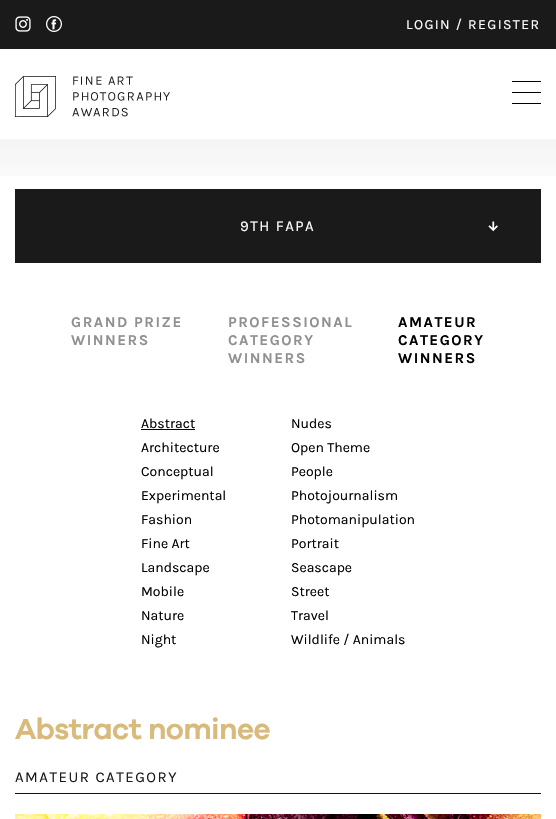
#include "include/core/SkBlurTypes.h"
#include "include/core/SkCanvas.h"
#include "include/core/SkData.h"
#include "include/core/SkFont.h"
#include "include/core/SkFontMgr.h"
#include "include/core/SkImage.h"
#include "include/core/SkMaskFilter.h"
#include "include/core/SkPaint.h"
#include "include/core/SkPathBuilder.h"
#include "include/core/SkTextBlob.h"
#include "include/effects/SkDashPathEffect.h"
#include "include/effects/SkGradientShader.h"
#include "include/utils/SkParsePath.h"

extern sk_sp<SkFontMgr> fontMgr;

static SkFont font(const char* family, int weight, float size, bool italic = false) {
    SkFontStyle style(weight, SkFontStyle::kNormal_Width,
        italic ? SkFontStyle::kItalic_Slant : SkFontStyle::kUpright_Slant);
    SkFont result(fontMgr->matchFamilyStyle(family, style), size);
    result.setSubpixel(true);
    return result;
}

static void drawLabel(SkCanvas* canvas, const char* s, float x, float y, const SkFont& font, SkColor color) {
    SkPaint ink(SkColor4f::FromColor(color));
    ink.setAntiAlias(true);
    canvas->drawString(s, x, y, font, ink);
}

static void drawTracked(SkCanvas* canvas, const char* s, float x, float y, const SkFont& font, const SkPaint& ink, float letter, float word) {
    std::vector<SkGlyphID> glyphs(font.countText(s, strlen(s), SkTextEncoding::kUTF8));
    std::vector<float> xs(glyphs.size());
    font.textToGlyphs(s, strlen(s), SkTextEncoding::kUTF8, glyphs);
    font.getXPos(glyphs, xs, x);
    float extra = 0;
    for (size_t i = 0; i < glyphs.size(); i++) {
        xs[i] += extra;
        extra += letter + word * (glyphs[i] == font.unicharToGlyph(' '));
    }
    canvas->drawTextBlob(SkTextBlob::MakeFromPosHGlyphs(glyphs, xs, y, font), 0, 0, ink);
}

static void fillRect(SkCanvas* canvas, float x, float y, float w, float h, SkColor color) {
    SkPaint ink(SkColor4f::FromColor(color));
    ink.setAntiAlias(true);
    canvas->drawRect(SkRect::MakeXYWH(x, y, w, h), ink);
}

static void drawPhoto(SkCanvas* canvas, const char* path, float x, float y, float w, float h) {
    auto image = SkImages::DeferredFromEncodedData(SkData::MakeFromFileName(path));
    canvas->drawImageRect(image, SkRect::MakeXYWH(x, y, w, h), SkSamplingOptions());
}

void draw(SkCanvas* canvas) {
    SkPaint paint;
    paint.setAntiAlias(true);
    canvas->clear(0xFFFFFFFF);
    fillRect(canvas, 0, 0, 556, 49, 0xFF1A1A1A);
    drawPhoto(canvas, "assets/img1.png", 15, 16, 16, 16);
    drawPhoto(canvas, "assets/img2.png", 46, 16, 16, 16);
    SkFont font1 = font("Karla", 400, 14);
    paint.setColor(0xFFFFFFFF);
    drawTracked(canvas, "LOGIN / REGISTER", 406, 29, font1, paint, 1.4f, 0);
    drawPhoto(canvas, "assets/img3.png", 15, 76, 155, 41);
    fillRect(canvas, 512, 81, 29, 1, 0xFF000000);
    fillRect(canvas, 512, 92, 29, 1, 0xFF000000);
    fillRect(canvas, 512, 103, 29, 1, 0xFF000000);
    drawPhoto(canvas, "assets/img4.png", 0, 139, 556, 37);
    fillRect(canvas, 15, 189, 526, 74, 0xFF1A1A1A);
    drawPhoto(canvas, "assets/img5.png", 488, 221, 10, 11);
    SkFont font2 = font("Karla", 400, 15);
    drawTracked(canvas, "9TH FAPA", 240, 231, font2, paint, 1.5f, 0);
    SkFont font3 = font("Karla", 700, 15);
    paint.setColor(0xFF909090);
    drawTracked(canvas, "GRAND PRIZE", 71, 327, font3, paint, 1.5f, 0);
    drawTracked(canvas, "WINNERS", 71, 345, font3, paint, 1.5f, 0);
    drawTracked(canvas, "PROFESSIONAL", 228, 327, font3, paint, 1.5f, 0);
    drawTracked(canvas, "CATEGORY", 228, 345, font3, paint, 1.5f, 0);
    drawTracked(canvas, "WINNERS", 228, 363, font3, paint, 1.5f, 0);
    paint.setColor(0xFF000000);
    drawTracked(canvas, "AMATEUR", 398, 327, font3, paint, 1.5f, 0);
    drawTracked(canvas, "CATEGORY", 398, 345, font3, paint, 1.5f, 0);
    drawTracked(canvas, "WINNERS", 398, 363, font3, paint, 1.5f, 0);
    drawLabel(canvas, "Abstract", 141, 428, font1, 0xFF000000);
    fillRect(canvas, 141, 429, 54, 1, 0xFF000000);
    drawLabel(canvas, "Architecture", 141, 452, font1, 0xFF000000);
    drawLabel(canvas, "Conceptual", 141, 476, font1, 0xFF000000);
    drawLabel(canvas, "Experimental", 141, 500, font1, 0xFF000000);
    drawLabel(canvas, "Fashion", 141, 524, font1, 0xFF000000);
    drawLabel(canvas, "Fine Art", 141, 548, font1, 0xFF000000);
    drawLabel(canvas, "Landscape", 141, 572, font1, 0xFF000000);
    drawLabel(canvas, "Mobile", 141, 596, font1, 0xFF000000);
    drawLabel(canvas, "Nature", 141, 620, font1, 0xFF000000);
    drawLabel(canvas, "Night", 141, 644, font1, 0xFF000000);
    drawLabel(canvas, "Nudes", 291, 428, font1, 0xFF000000);
    drawLabel(canvas, "Open Theme", 291, 452, font1, 0xFF000000);
    drawLabel(canvas, "People", 291, 476, font1, 0xFF000000);
    drawLabel(canvas, "Photojournalism", 291, 500, font1, 0xFF000000);
    drawLabel(canvas, "Photomanipulation", 291, 524, font1, 0xFF000000);
    drawLabel(canvas, "Portrait", 291, 548, font1, 0xFF000000);
    drawLabel(canvas, "Seascape", 291, 572, font1, 0xFF000000);
    drawLabel(canvas, "Street", 291, 596, font1, 0xFF000000);
    drawLabel(canvas, "Travel", 291, 620, font1, 0xFF000000);
    drawLabel(canvas, "Wildlife / Animals", 291, 644, font1, 0xFF000000);
    SkFont font4 = font("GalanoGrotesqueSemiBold", 400, 30);
    paint.setColor(0xFFD8BB7C);
    drawTracked(canvas, "Abstract nominee", 15, 739, font4, paint, -0.6f, 0);
    fillRect(canvas, 15, 793, 526, 1, 0xFF111111);
    paint.setColor(0xFF1A1A1A);
    drawTracked(canvas, "AMATEUR CATEGORY", 15, 782, font2, paint, 1.5f, 0);
    drawPhoto(canvas, "assets/img6.png", 15, 814, 526, 5);
}
